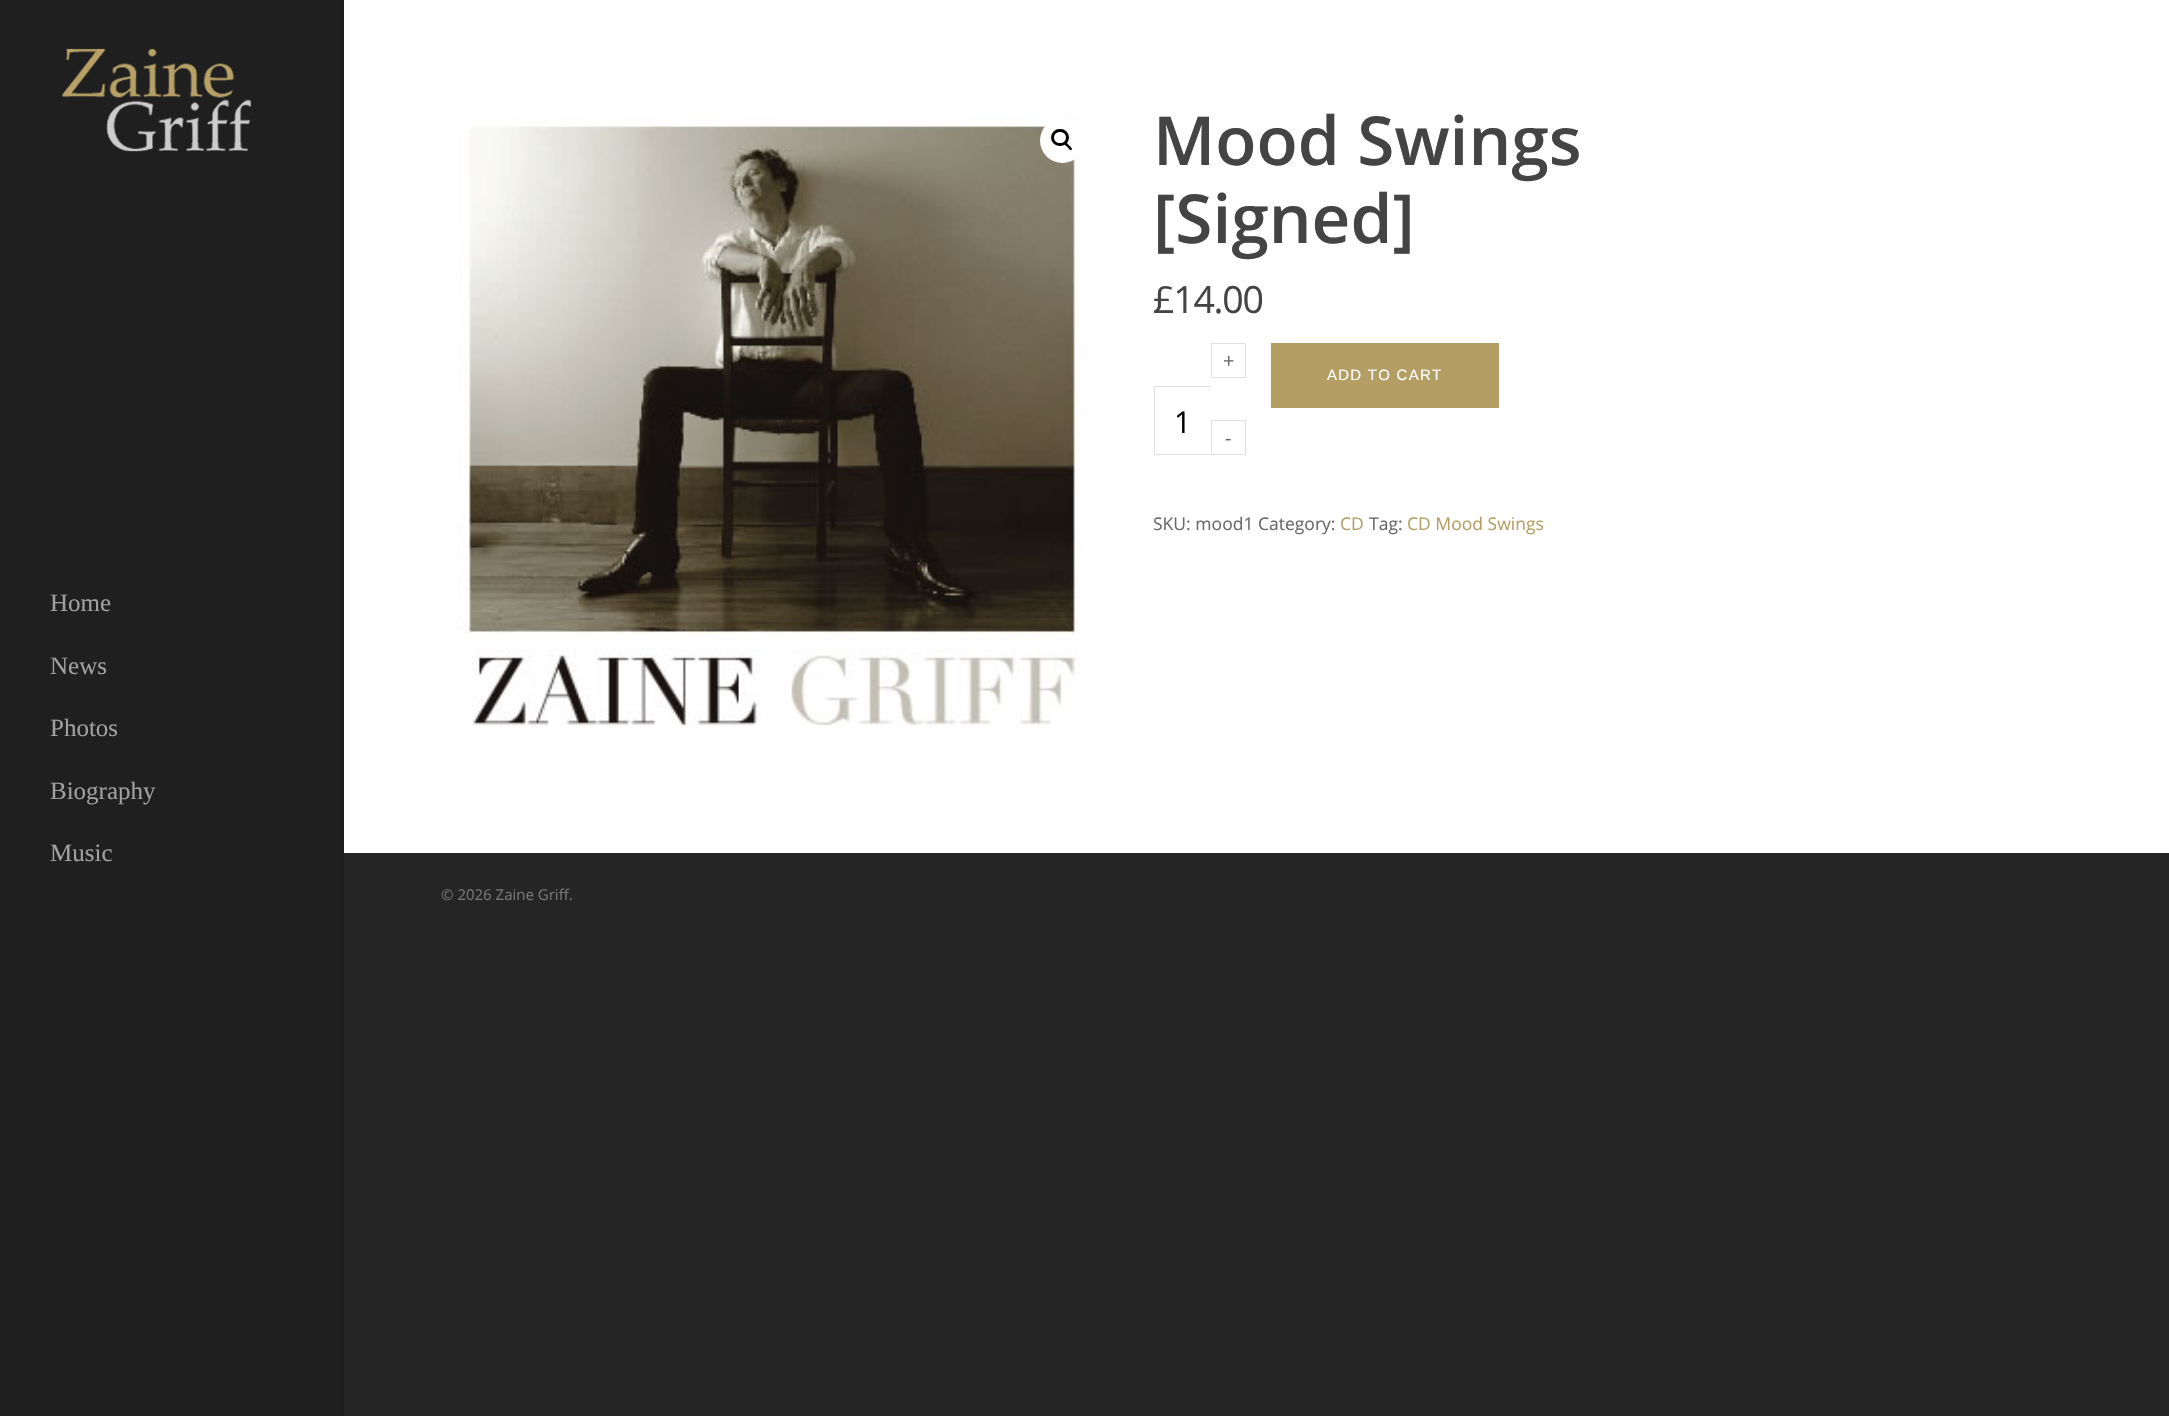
#include "include/core/SkBlurTypes.h"
#include "include/core/SkCanvas.h"
#include "include/core/SkData.h"
#include "include/core/SkFont.h"
#include "include/core/SkFontMgr.h"
#include "include/core/SkImage.h"
#include "include/core/SkMaskFilter.h"
#include "include/core/SkPaint.h"
#include "include/core/SkPathBuilder.h"
#include "include/core/SkTextBlob.h"
#include "include/effects/SkDashPathEffect.h"
#include "include/effects/SkGradientShader.h"
#include "include/utils/SkParsePath.h"

extern sk_sp<SkFontMgr> fontMgr;

static SkFont font(const char* family, int weight, float size, bool italic = false) {
    SkFontStyle style(weight, SkFontStyle::kNormal_Width,
        italic ? SkFontStyle::kItalic_Slant : SkFontStyle::kUpright_Slant);
    SkFont result(fontMgr->matchFamilyStyle(family, style), size);
    result.setSubpixel(true);
    return result;
}

static void drawLabel(SkCanvas* canvas, const char* s, float x, float y, const SkFont& font, SkColor color) {
    SkPaint ink(SkColor4f::FromColor(color));
    ink.setAntiAlias(true);
    canvas->drawString(s, x, y, font, ink);
}

static void drawTracked(SkCanvas* canvas, const char* s, float x, float y, const SkFont& font, const SkPaint& ink, float letter, float word) {
    std::vector<SkGlyphID> glyphs(font.countText(s, strlen(s), SkTextEncoding::kUTF8));
    std::vector<float> xs(glyphs.size());
    font.textToGlyphs(s, strlen(s), SkTextEncoding::kUTF8, glyphs);
    font.getXPos(glyphs, xs, x);
    float extra = 0;
    for (size_t i = 0; i < glyphs.size(); i++) {
        xs[i] += extra;
        extra += letter + word * (glyphs[i] == font.unicharToGlyph(' '));
    }
    canvas->drawTextBlob(SkTextBlob::MakeFromPosHGlyphs(glyphs, xs, y, font), 0, 0, ink);
}

static void fillRect(SkCanvas* canvas, float x, float y, float w, float h, SkColor color) {
    SkPaint ink(SkColor4f::FromColor(color));
    ink.setAntiAlias(true);
    canvas->drawRect(SkRect::MakeXYWH(x, y, w, h), ink);
}

static void drawPhoto(SkCanvas* canvas, const char* path, float x, float y, float w, float h) {
    auto image = SkImages::DeferredFromEncodedData(SkData::MakeFromFileName(path));
    canvas->drawImageRect(image, SkRect::MakeXYWH(x, y, w, h), SkSamplingOptions());
}

static SkPath parsePath(const char* data, bool evenOdd = false) {
    SkPath result = *SkParsePath::FromSVGString(data);
    if (evenOdd) result.setFillType(SkPathFillType::kEvenOdd);
    return result;
}

void draw(SkCanvas* canvas) {
    SkPaint paint;
    paint.setAntiAlias(true);
    canvas->clear(0xFF252525);
    fillRect(canvas, 0, 0, 343, 1416, 0xFF1F1F1F);
    fillRect(canvas, 343, 0, 1, 1416, 0xFF1D1D1D);
    drawPhoto(canvas, "assets/img1.png", 62, 48, 190, 104);
    SkFont font1 = font("Liberation Serif", 400, 25);
    drawLabel(canvas, "Home", 50, 611, font1, 0xFFA0A0A0);
    drawLabel(canvas, "News", 50, 674, font1, 0xFFA0A0A0);
    drawLabel(canvas, "Photos", 50, 736, font1, 0xFFA0A0A0);
    drawLabel(canvas, "Biography", 50, 799, font1, 0xFFA0A0A0);
    drawLabel(canvas, "Music", 50, 861, font1, 0xFFA0A0A0);
    fillRect(canvas, 344, 0, 1825, 853, 0xFFFFFFFF);
    drawPhoto(canvas, "assets/img2.png", 457, 116, 624, 610);
    paint.setColor(0xFFFFFFFF);
    canvas->drawCircle(1062.5f, 140.5f, 22.5f, paint);
    paint.setStroke(true);
    paint.setStrokeWidth(3);
    paint.setColor(0xFF000000);
    canvas->drawRoundRect(SkRect::MakeXYWH(1052.5f, 130.5f, 15, 14), 7, 7, paint);
    paint.setStroke(false);
    canvas->drawPath(parsePath("M1064.5 142.5C1066 141.5 1068.5 144.5 1069 145.5C1070 146 1073 148.5 1071.5 150C1070.5 151 1068 148 1067.5 147C1066.5 146.5 1063 144 1064.5 142.5Z"), paint);
    SkFont font2 = font("Open Sans", 600, 67.5f);
    drawLabel(canvas, "Mood Swings", 1153, 165, font2, 0xFF444444);
    drawLabel(canvas, "[Signed]", 1153, 243, font2, 0xFF444444);
    SkFont font3 = font("Open Sans", 400, 37.5f);
    paint.setColor(0xFF444444);
    drawTracked(canvas, "£14.00", 1153, 313, font3, paint, -1.25f, 0);
    paint.setStroke(true);
    paint.setStrokeWidth(1);
    paint.setColor(0xFFE1E1E1);
    canvas->drawRect(SkRect::MakeXYWH(1211.5f, 343.5f, 34, 34), paint);
    SkFont font4 = font("Open Sans", 400, 20);
    drawLabel(canvas, "+", 1223, 368, font4, 0xFF676767);
    fillRect(canvas, 1154, 386, 57, 1, 0xFFE1E1E1);
    fillRect(canvas, 1154, 454, 57, 1, 0xFFE1E1E1);
    fillRect(canvas, 1154, 386, 1, 69, 0xFFE1E1E1);
    SkFont font5 = font("Open Sans", 400, 30);
    drawLabel(canvas, "1", 1174, 433, font5, 0xFF000000);
    canvas->drawRect(SkRect::MakeXYWH(1211.5f, 420.5f, 34, 34), paint);
    drawLabel(canvas, "-", 1225, 445, font4, 0xFF676767);
    fillRect(canvas, 1271, 343, 228, 65, 0xFFB49E64);
    SkFont font6 = font("Liberation Sans", 400, 15);
    paint.setStroke(false);
    paint.setColor(0xFFFFFFFF);
    drawTracked(canvas, "ADD TO CART", 1327, 380, font6, paint, 1.25f, 0);
    SkFont font7 = font("Open Sans", 400, 17.5f);
    drawLabel(canvas, "SKU: mood1 Category:", 1153, 530, font7, 0xFF676767);
    drawLabel(canvas, "CD", 1340, 530, font7, 0xFFB49E64);
    drawLabel(canvas, "Tag:", 1369, 530, font7, 0xFF676767);
    drawLabel(canvas, "CD Mood Swings", 1407, 530, font7, 0xFFB49E64);
    SkFont font8 = font("Open Sans", 400, 15);
    drawLabel(canvas, "© 2026 Zaine Griff.", 441, 900, font8, 0xFF777777);
}
